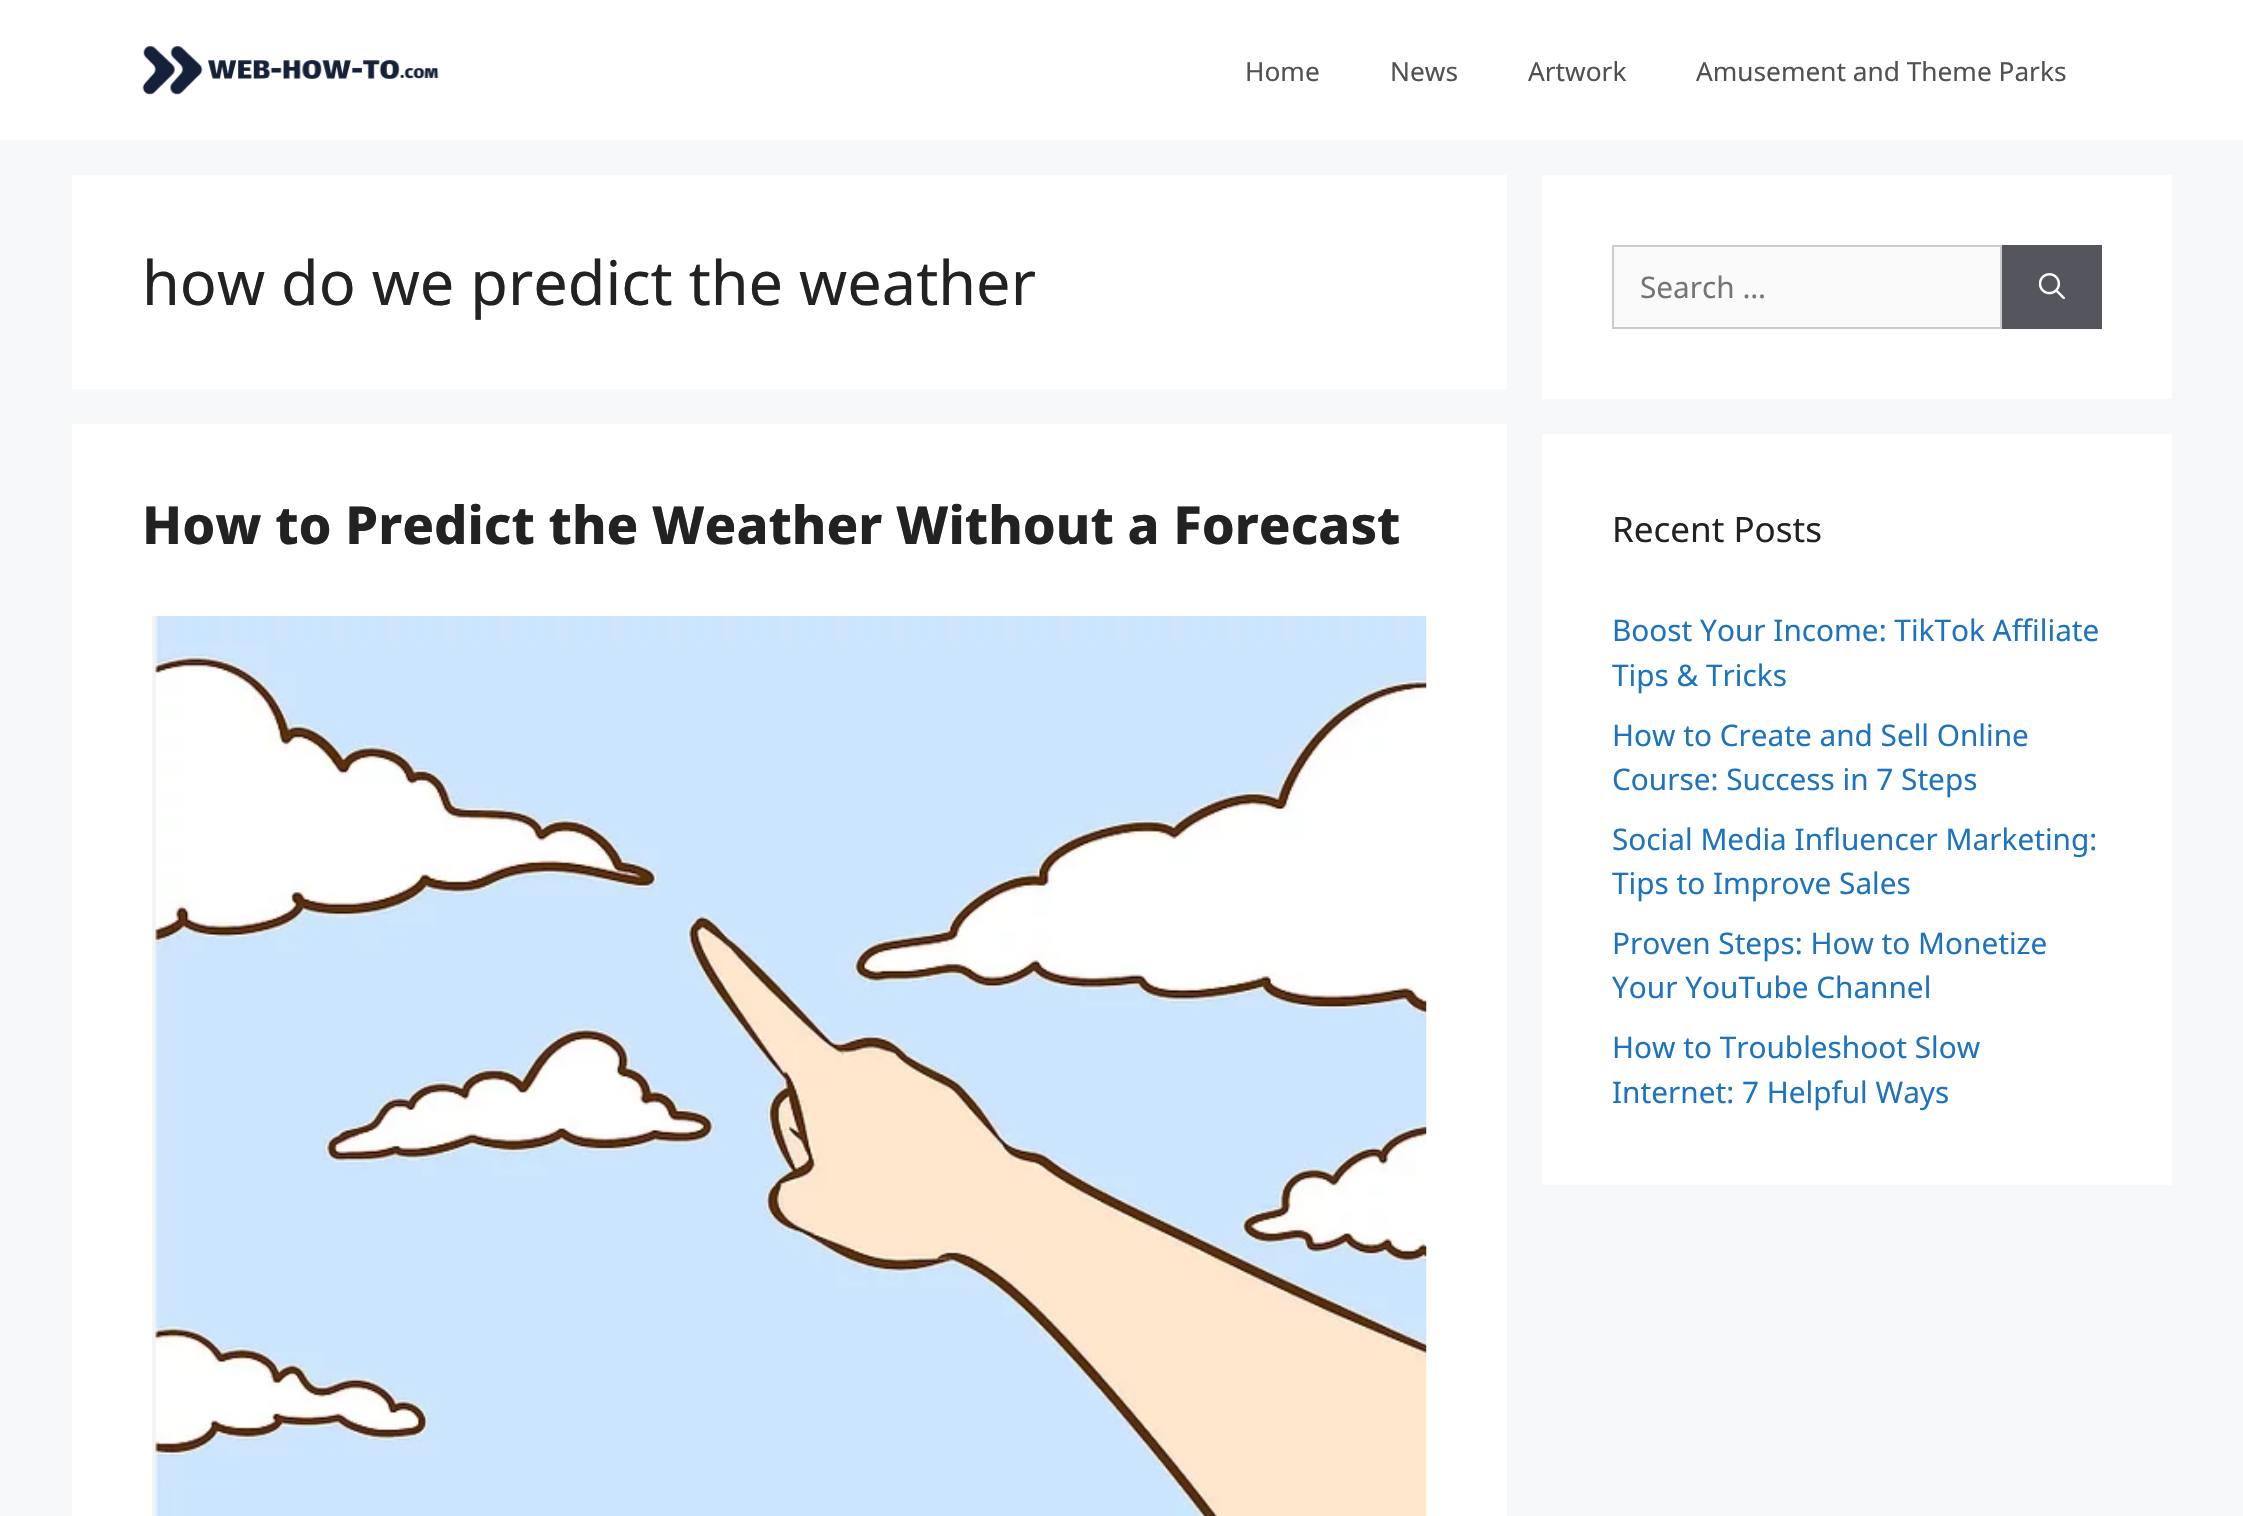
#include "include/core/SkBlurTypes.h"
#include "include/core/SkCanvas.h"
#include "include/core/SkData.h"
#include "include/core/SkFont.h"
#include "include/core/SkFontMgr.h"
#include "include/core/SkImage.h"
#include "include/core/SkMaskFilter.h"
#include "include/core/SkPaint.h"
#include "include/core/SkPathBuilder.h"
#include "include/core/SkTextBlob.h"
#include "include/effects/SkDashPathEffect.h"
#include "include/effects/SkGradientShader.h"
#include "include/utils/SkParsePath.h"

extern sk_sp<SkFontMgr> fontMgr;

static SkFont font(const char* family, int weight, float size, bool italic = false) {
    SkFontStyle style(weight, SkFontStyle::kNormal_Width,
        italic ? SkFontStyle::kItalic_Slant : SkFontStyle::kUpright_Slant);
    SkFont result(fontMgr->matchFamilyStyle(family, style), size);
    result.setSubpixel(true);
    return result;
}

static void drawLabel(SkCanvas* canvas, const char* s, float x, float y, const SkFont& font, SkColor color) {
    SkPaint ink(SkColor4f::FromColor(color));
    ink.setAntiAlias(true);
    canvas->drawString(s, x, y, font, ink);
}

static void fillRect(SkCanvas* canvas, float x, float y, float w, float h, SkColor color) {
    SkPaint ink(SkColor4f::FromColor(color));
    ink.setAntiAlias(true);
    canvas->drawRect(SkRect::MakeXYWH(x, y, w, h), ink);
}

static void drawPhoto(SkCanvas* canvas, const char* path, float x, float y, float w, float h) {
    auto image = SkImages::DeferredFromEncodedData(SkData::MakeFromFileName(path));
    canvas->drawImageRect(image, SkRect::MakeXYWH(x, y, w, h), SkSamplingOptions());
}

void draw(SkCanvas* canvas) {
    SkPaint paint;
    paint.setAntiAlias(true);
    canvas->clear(0xFFF7F8F9);
    fillRect(canvas, 0, 0, 2243, 140, 0xFFFFFFFF);
    drawPhoto(canvas, "assets/img1.png", 142, 46, 297, 49);
    SkFont font1 = font("Noto Sans", 400, 26.25f);
    drawLabel(canvas, "Home", 1245, 81, font1, 0xFF515151);
    drawLabel(canvas, "News", 1390, 81, font1, 0xFF515151);
    drawLabel(canvas, "Artwork", 1528, 81, font1, 0xFF515151);
    drawLabel(canvas, "Amusement and Theme Parks", 1696, 81, font1, 0xFF515151);
    fillRect(canvas, 72, 175, 1435, 214, 0xFFFFFFFF);
    SkFont font2 = font("Noto Sans", 400, 61.25f);
    drawLabel(canvas, "how do we predict the weather", 142, 305, font2, 0xFF222222);
    fillRect(canvas, 72, 424, 1435, 1092, 0xFFFFFFFF);
    SkFont font3 = font("Noto Sans", 800, 52.5f);
    drawLabel(canvas, "How to Predict the Weather Without a Forecast", 142, 544, font3, 0xFF222222);
    drawPhoto(canvas, "assets/img2.png", 152, 616, 1275, 900);
    fillRect(canvas, 1542, 175, 630, 224, 0xFFFFFFFF);
    paint.setColor(0xFFFAFAFA);
    canvas->drawRect(SkRect::MakeXYWH(1613, 246, 388, 82), paint);
    paint.setStroke(true);
    paint.setStrokeWidth(2);
    paint.setColor(0xFFCCCCCC);
    canvas->drawRect(SkRect::MakeXYWH(1613, 246, 388, 82), paint);
    SkFont font4 = font("Noto Sans", 400, 29.75f);
    drawLabel(canvas, "Search …", 1640, 298, font4, 0xFF757575);
    fillRect(canvas, 2002, 245, 100, 84, 0xFF55555E);
    drawPhoto(canvas, "assets/img3.png", 2039, 273, 26, 26);
    fillRect(canvas, 1542, 434, 630, 751, 0xFFFFFFFF);
    SkFont font5 = font("Noto Sans", 400, 35);
    drawLabel(canvas, "Recent Posts", 1612, 542, font5, 0xFF222222);
    drawLabel(canvas, "Boost Your Income: TikTok Affiliate", 1612, 641, font4, 0xFF1E73BE);
    drawLabel(canvas, "Tips & Tricks", 1612, 686, font4, 0xFF1E73BE);
    drawLabel(canvas, "How to Create and Sell Online", 1612, 746, font4, 0xFF1E73BE);
    drawLabel(canvas, "Course: Success in 7 Steps", 1612, 790, font4, 0xFF1E73BE);
    drawLabel(canvas, "Social Media Influencer Marketing:", 1612, 850, font4, 0xFF1E73BE);
    drawLabel(canvas, "Tips to Improve Sales", 1612, 894, font4, 0xFF1E73BE);
    drawLabel(canvas, "Proven Steps: How to Monetize", 1612, 954, font4, 0xFF1E73BE);
    drawLabel(canvas, "Your YouTube Channel", 1612, 998, font4, 0xFF1E73BE);
    drawLabel(canvas, "How to Troubleshoot Slow", 1612, 1058, font4, 0xFF1E73BE);
    drawLabel(canvas, "Internet: 7 Helpful Ways", 1612, 1103, font4, 0xFF1E73BE);
}
